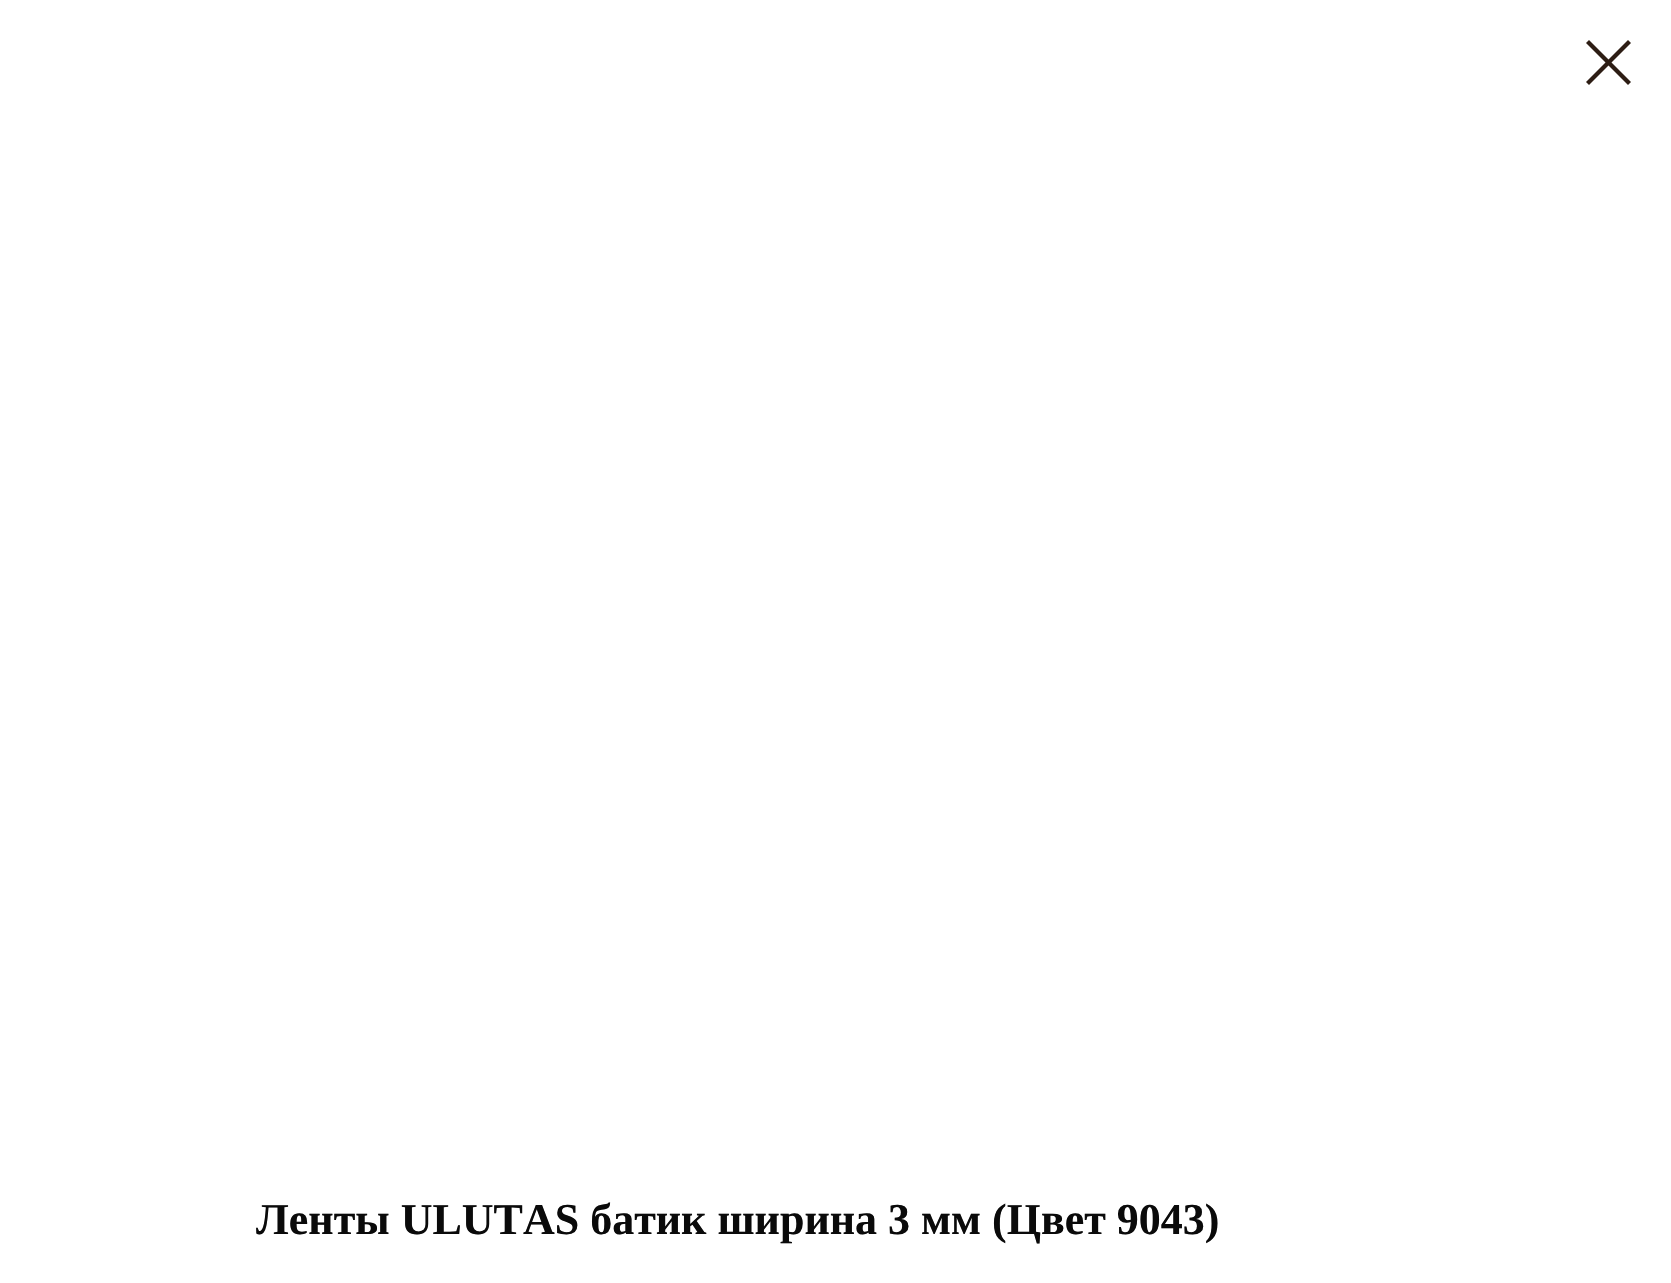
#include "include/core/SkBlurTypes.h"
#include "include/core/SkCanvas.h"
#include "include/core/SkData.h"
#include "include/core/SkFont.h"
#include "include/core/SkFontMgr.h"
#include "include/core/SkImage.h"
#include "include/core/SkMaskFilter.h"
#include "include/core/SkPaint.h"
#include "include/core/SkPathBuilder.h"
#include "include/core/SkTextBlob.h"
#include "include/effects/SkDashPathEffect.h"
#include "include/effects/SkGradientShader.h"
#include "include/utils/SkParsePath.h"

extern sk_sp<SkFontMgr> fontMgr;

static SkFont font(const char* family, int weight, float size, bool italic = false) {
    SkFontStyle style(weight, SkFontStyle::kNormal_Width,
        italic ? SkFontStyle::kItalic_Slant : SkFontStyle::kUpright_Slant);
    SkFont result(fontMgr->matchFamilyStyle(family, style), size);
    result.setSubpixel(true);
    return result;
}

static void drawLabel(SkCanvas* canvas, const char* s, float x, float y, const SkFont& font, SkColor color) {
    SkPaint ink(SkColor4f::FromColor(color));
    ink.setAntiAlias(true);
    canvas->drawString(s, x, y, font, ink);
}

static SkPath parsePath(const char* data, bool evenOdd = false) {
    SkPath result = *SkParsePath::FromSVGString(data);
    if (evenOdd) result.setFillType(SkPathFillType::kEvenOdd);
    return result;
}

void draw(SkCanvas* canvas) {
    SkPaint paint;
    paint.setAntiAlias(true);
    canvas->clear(0xFFFFFFFF);
    paint.setColor(0xFF2D1D14);
    canvas->drawPath(parsePath("M1586 43L1589 40L1631 82L1628 85Z", true), paint);
    canvas->drawPath(parsePath("M1628 40L1631 43L1589 85L1586 82Z", true), paint);
    SkFont font1 = font("Liberation Serif", 700, 44);
    drawLabel(canvas, "Ленты ULUTAS батик ширина 3 мм (Цвет 9043)", 256, 1234, font1, 0xFF0A0A0A);
}
